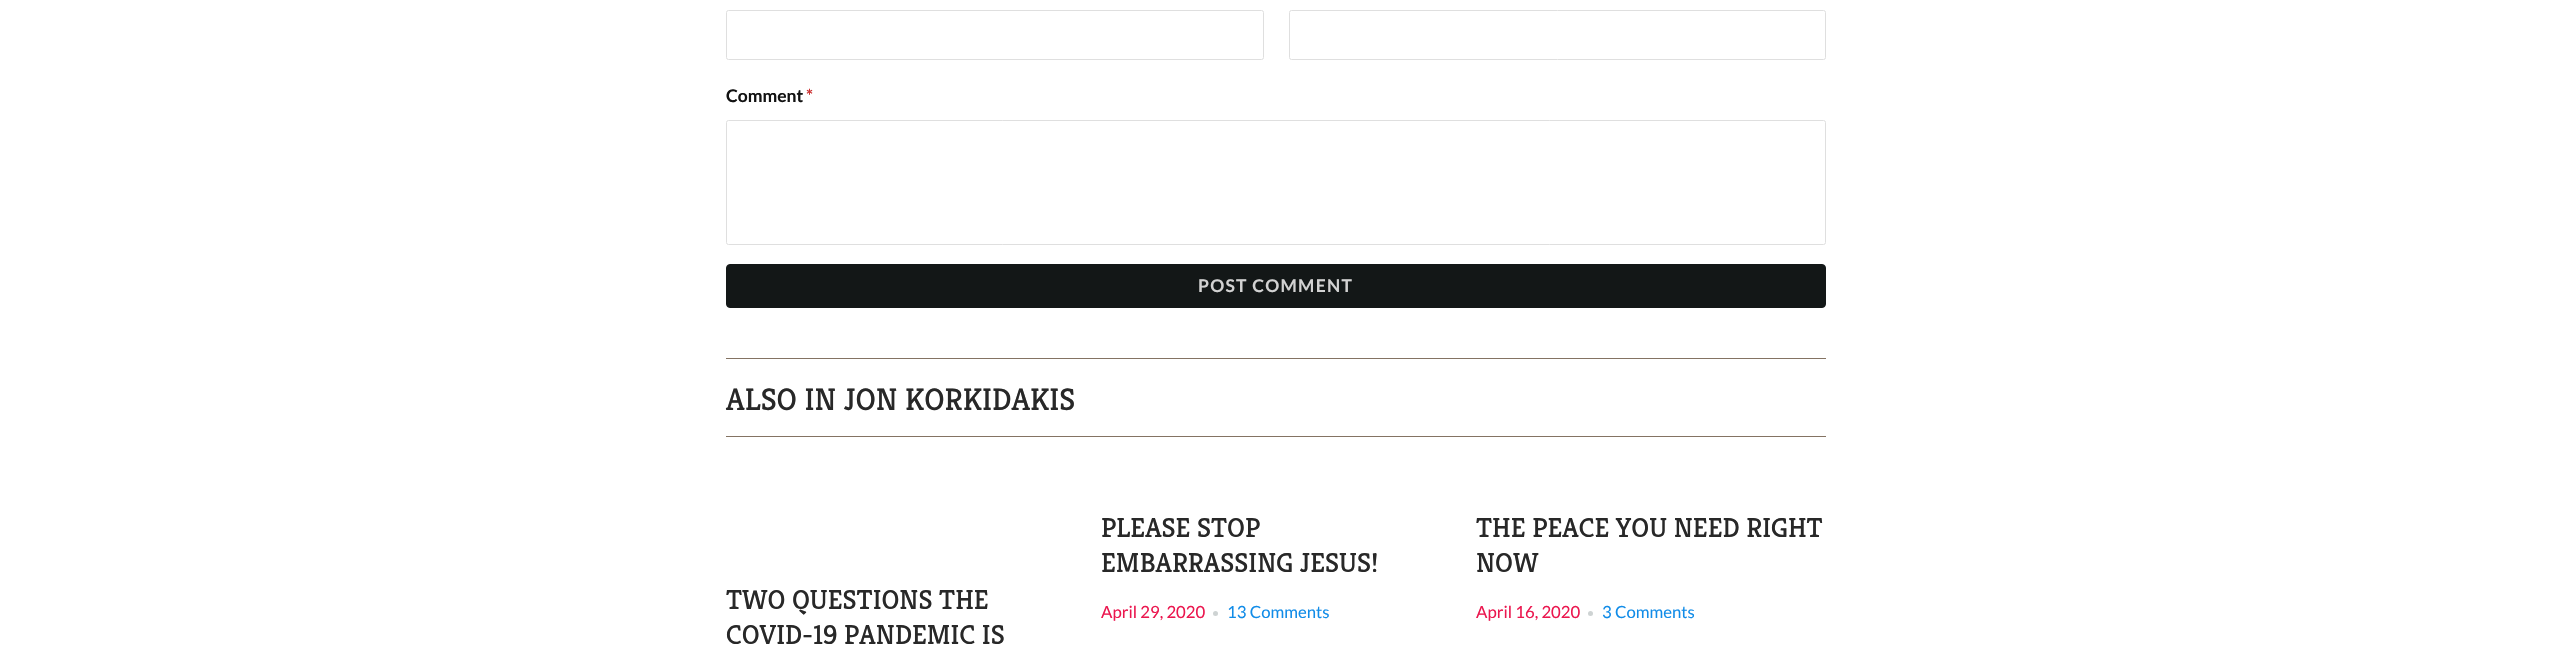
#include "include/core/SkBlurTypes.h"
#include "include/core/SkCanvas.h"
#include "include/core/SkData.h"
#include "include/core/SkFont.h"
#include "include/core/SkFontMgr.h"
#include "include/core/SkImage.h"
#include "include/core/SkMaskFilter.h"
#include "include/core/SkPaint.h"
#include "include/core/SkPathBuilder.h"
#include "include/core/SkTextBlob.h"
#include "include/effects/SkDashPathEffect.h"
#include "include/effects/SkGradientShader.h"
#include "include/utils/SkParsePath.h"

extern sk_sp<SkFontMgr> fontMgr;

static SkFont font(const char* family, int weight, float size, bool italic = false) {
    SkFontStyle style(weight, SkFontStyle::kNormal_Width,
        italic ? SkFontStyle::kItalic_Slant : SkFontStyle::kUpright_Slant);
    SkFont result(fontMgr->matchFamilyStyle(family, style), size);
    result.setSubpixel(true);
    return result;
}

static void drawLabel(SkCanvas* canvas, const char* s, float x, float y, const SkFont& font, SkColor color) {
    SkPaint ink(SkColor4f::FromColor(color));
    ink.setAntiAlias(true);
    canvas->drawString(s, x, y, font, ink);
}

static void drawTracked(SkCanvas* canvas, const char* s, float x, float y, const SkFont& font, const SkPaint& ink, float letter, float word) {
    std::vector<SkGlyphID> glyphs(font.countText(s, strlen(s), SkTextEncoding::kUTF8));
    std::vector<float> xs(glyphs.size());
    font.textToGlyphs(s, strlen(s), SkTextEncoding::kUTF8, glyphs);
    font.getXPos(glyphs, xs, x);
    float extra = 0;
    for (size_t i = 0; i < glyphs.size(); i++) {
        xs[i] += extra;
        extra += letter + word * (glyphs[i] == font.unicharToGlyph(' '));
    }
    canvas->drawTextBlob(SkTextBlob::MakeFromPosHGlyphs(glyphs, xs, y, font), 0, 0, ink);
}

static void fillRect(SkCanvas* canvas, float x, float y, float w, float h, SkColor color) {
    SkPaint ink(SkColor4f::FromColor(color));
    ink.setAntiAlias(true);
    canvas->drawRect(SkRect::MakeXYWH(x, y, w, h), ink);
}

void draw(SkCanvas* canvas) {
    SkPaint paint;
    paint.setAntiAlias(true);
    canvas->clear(0xFFFFFFFF);
    paint.setStroke(true);
    paint.setStrokeWidth(1);
    paint.setColor(0xFFDFDFDF);
    canvas->drawRoundRect(SkRect::MakeXYWH(726.5f, 10.5f, 537, 49), 2, 2, paint);
    canvas->drawRoundRect(SkRect::MakeXYWH(1289.5f, 10.5f, 536, 49), 2, 2, paint);
    SkFont font1 = font("Lato", 700, 17.5f);
    drawLabel(canvas, "Comment", 726, 102, font1, 0xFF121212);
    drawLabel(canvas, "*", 806, 102, font1, 0xFFCC3333);
    canvas->drawRoundRect(SkRect::MakeXYWH(726.5f, 120.5f, 1099, 124), 2, 2, paint);
    paint.setStroke(false);
    paint.setColor(0xFF131717);
    canvas->drawRoundRect(SkRect::MakeXYWH(726.5f, 264.5f, 1099, 43), 3.5f, 3.5f, paint);
    paint.setStroke(true);
    canvas->drawRoundRect(SkRect::MakeXYWH(726.5f, 264.5f, 1099, 43), 3.5f, 3.5f, paint);
    paint.setStroke(false);
    paint.setColor(0xFFD2D2D2);
    drawTracked(canvas, "POST COMMENT", 1198, 292, font1, paint, 1.25f, 0);
    fillRect(canvas, 726, 358, 1100, 1, 0xFF847363);
    fillRect(canvas, 726, 436, 1100, 1, 0xFF847363);
    SkFont font2 = font("Kreon", 400, 31.25f);
    drawLabel(canvas, "ALSO IN JON KORKIDAKIS", 726, 410, font2, 0xFF282828);
    SkFont font3 = font("Kreon", 400, 27.5f);
    drawLabel(canvas, "TWO QUESTIONS THE", 726, 609, font3, 0xFF282828);
    drawLabel(canvas, "COVID-19 PANDEMIC IS", 726, 644, font3, 0xFF282828);
    drawLabel(canvas, "PLEASE STOP", 1101, 537, font3, 0xFF282828);
    drawLabel(canvas, "EMBARRASSING JESUS!", 1101, 572, font3, 0xFF282828);
    SkFont font4 = font("Lato", 400, 16.75f);
    drawLabel(canvas, "April 29, 2020", 1101, 618, font4, 0xFFEB174F);
    paint.setColor(0xFFCED3D3);
    canvas->drawCircle(1215.5f, 613.5f, 2.5f, paint);
    drawLabel(canvas, "13 Comments", 1227, 618, font4, 0xFF118CE8);
    drawLabel(canvas, "THE PEACE YOU NEED RIGHT", 1476, 537, font3, 0xFF282828);
    drawLabel(canvas, "NOW", 1476, 572, font3, 0xFF282828);
    drawLabel(canvas, "April 16, 2020", 1476, 618, font4, 0xFFEB174F);
    canvas->drawCircle(1590.5f, 613.5f, 2.5f, paint);
    drawLabel(canvas, "3 Comments", 1602, 618, font4, 0xFF118CE8);
}
